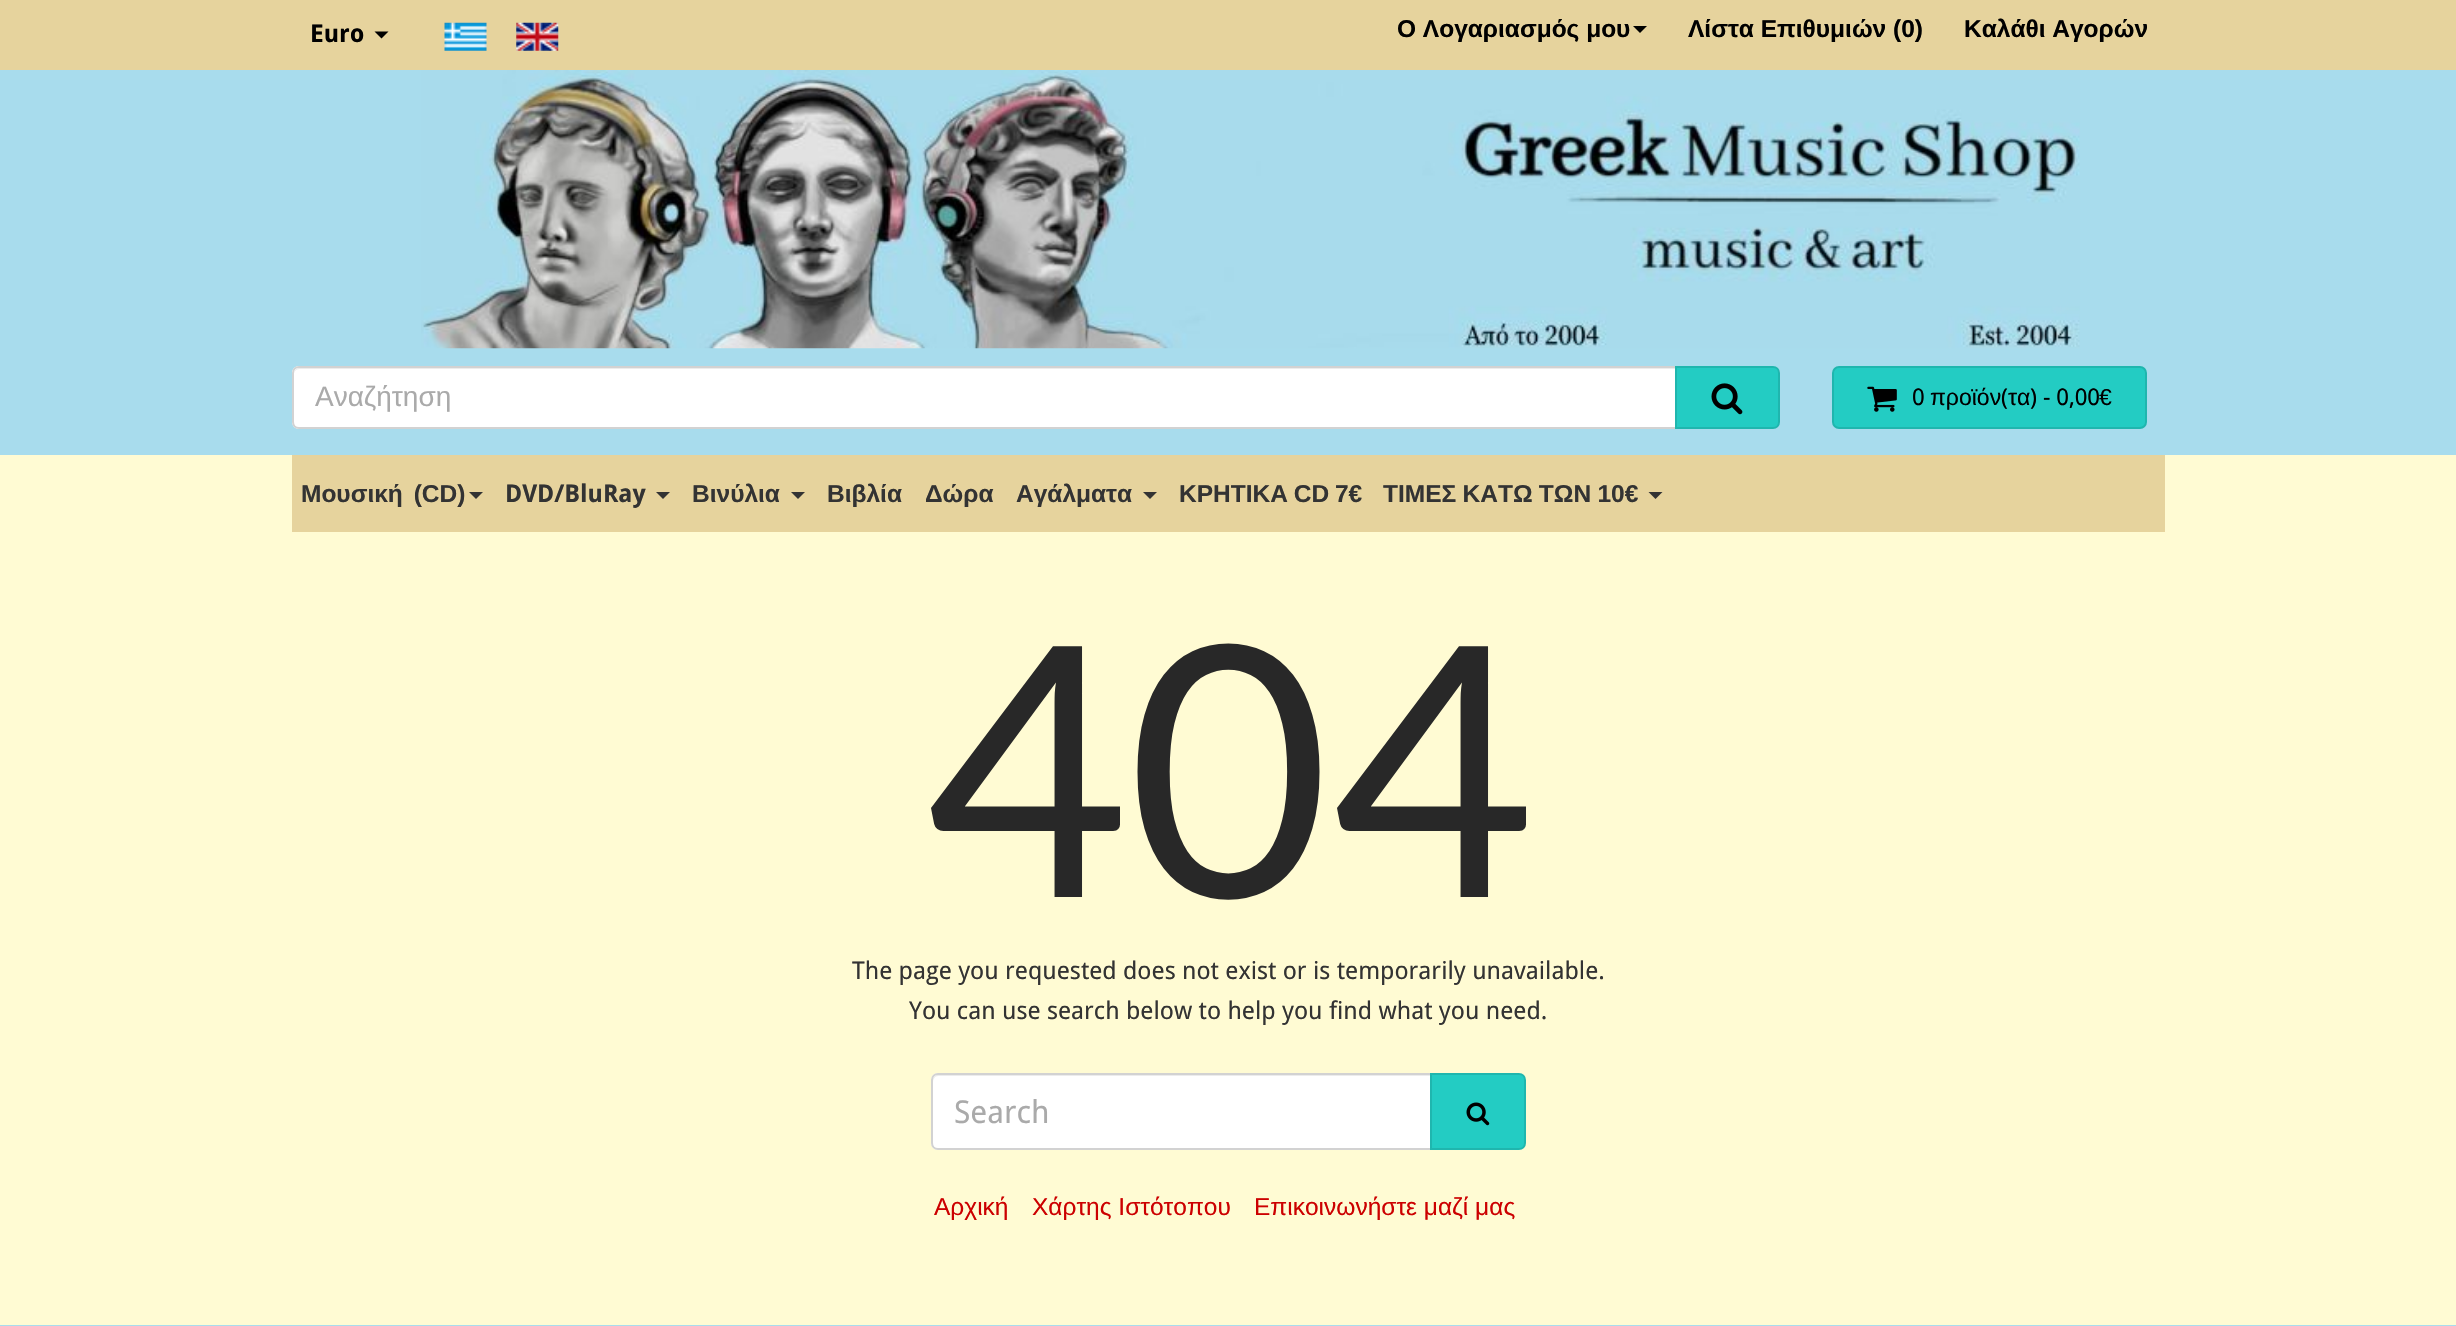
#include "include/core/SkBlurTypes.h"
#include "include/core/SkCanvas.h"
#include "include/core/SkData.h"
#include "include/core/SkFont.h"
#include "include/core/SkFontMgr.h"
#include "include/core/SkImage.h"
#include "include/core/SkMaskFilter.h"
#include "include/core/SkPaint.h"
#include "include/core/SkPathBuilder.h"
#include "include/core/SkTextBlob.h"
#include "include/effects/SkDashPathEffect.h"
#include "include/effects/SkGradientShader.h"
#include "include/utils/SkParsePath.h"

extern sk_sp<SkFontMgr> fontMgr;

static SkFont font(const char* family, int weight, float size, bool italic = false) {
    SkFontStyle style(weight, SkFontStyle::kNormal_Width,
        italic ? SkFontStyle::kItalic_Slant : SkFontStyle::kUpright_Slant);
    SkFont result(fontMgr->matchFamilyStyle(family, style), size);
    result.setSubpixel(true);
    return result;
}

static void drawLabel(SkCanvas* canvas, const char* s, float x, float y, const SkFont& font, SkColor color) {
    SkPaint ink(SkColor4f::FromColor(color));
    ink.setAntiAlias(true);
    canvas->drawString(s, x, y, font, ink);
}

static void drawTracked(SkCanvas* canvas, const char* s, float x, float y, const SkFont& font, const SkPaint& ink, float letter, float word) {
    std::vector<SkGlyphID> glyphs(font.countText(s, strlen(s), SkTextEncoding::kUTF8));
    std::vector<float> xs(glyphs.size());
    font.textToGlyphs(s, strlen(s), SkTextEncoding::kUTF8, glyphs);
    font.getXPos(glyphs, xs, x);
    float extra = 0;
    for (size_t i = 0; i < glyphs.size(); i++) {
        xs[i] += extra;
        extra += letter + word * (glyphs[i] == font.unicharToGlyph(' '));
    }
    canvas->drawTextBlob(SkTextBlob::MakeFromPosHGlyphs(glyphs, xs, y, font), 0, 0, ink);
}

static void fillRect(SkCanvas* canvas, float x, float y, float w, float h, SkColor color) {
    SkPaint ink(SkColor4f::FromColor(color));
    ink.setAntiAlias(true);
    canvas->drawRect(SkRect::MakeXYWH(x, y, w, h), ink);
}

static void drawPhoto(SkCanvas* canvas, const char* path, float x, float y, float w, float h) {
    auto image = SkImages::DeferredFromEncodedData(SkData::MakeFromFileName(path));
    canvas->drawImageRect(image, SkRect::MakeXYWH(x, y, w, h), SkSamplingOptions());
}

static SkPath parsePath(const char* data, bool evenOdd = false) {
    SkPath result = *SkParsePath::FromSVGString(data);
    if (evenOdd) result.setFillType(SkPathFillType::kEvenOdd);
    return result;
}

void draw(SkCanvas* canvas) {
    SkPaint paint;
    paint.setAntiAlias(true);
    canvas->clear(0xFFFFFBD3);
    fillRect(canvas, 0, 0, 2456, 70, 0xFFE6D39D);
    SkFont font1 = font("Droid Sans", 700, 24.5f);
    drawLabel(canvas, "Euro", 310, 42, font1, 0xFF000000);
    paint.setColor(0xFF000000);
    canvas->drawPath(parsePath("M374.5 31.5H388.5L381.5 38.5Z"), paint);
    drawPhoto(canvas, "assets/img1.png", 444, 22, 43, 29);
    drawPhoto(canvas, "assets/img2.png", 516, 22, 43, 29);
    SkFont font2 = font("Liberation Sans", 700, 24.5f);
    drawLabel(canvas, "Ο Λογαριασμός μου", 1397, 37, font2, 0xFF000000);
    canvas->drawPath(parsePath("M1633 26H1647L1640 33Z"), paint);
    drawLabel(canvas, "Λίστα Επιθυμιών (0)", 1688, 37, font2, 0xFF000000);
    drawLabel(canvas, "Καλάθι Αγορών", 1964, 37, font2, 0xFF000000);
    fillRect(canvas, 0, 70, 2456, 385, 0xFFA8DCED);
    drawPhoto(canvas, "assets/img3.png", 421, 70, 1659, 279);
    paint.setColor(0xFFFFFFFF);
    canvas->drawPath(parsePath("M299 366H1677V429H299C295 429 292 426 292 422V373C292 369 295 366 299 366Z"), paint);
    paint.setColor(0xFFECECEC);
    canvas->drawPath(parsePath("M299 369H1675V368H299C296 368 294 371 294 374C294 372 296 369 299 369Z"), paint);
    paint.setStroke(true);
    paint.setStrokeWidth(2);
    paint.setColor(0xFFD2D2D2);
    canvas->drawPath(parsePath("M299 367H1676V428H299C295.5 428 293 425.5 293 422V373C293 369.5 295.5 367 299 367Z"), paint);
    SkFont font3 = font("Liberation Sans", 400, 28);
    drawLabel(canvas, "Αναζήτηση", 315, 406, font3, 0xFFAAAAAA);
    paint.setStroke(false);
    paint.setColor(0xFF23CCC3);
    canvas->drawPath(parsePath("M1676 367H1773C1776.5 367 1779 369.5 1779 373V422C1779 425.5 1776.5 428 1773 428H1676Z"), paint);
    paint.setStroke(true);
    paint.setColor(0xFF1FB6AE);
    canvas->drawPath(parsePath("M1676 367H1773C1776.5 367 1779 369.5 1779 373V422C1779 425.5 1776.5 428 1773 428H1676Z"), paint);
    drawPhoto(canvas, "assets/img4.png", 1711, 383, 32, 32);
    paint.setStroke(false);
    paint.setColor(0xFF23CCC3);
    canvas->drawRoundRect(SkRect::MakeXYWH(1833, 367, 313, 61), 6, 6, paint);
    paint.setStroke(true);
    paint.setColor(0xFF1FB6AE);
    canvas->drawRoundRect(SkRect::MakeXYWH(1833, 367, 313, 61), 6, 6, paint);
    drawPhoto(canvas, "assets/img5.png", 1867, 386, 30, 26);
    SkFont font4 = font("Droid Sans", 400, 23);
    drawLabel(canvas, "0", 1912, 405, font4, 0xFF000000);
    SkFont font5 = font("Liberation Sans", 400, 23);
    drawLabel(canvas, "προϊόν", 1930, 405, font5, 0xFF000000);
    drawLabel(canvas, "(", 2001, 405, font4, 0xFF000000);
    drawLabel(canvas, "τα", 2008, 405, font5, 0xFF000000);
    drawLabel(canvas, ") - 0,00", 2030, 405, font4, 0xFF000000);
    drawLabel(canvas, "€", 2099, 405, font5, 0xFF000000);
    fillRect(canvas, 292, 455, 1873, 77, 0xFFE6D39D);
    paint.setStroke(false);
    paint.setColor(0xFF333333);
    drawTracked(canvas, "Μουσική (CD)", 301, 502, font2, paint, 0, 4);
    canvas->drawPath(parsePath("M469 492H483L476 499Z"), paint);
    drawLabel(canvas, "DVD/BluRay", 505, 502, font1, 0xFF333333);
    canvas->drawPath(parsePath("M656 492H670L663 499Z"), paint);
    drawLabel(canvas, "Βινύλια", 692, 502, font2, 0xFF333333);
    canvas->drawPath(parsePath("M791 492H805L798 499Z"), paint);
    drawLabel(canvas, "Βιβλία", 827, 502, font2, 0xFF333333);
    drawLabel(canvas, "Δώρα", 925, 502, font2, 0xFF333333);
    drawLabel(canvas, "Αγάλματα", 1016, 502, font2, 0xFF333333);
    canvas->drawPath(parsePath("M1143 492H1157L1150 499Z"), paint);
    drawTracked(canvas, "ΚΡΗΤΙΚΑ CD 7€", 1179, 502, font2, paint, 0, -1);
    drawTracked(canvas, "ΤΙΜΕΣ ΚΑΤΩ ΤΩΝ 10€", 1383, 502, font2, paint, 0, -0.5f);
    canvas->drawPath(parsePath("M1648.5 492H1662.5L1655.5 499Z"), paint);
    SkFont font6 = font("Lato", 400, 350);
    drawLabel(canvas, "404", 924, 897, font6, 0xFF282828);
    SkFont font7 = font("Droid Sans", 400, 24.5f);
    drawLabel(canvas, "The page you requested does not exist or is temporarily unavailable.", 852, 979, font7, 0xFF333333);
    drawLabel(canvas, "You can use search below to help you find what you need.", 909, 1019, font7, 0xFF333333);
    paint.setColor(0xFFFFFFFF);
    canvas->drawPath(parsePath("M938 1073H1432V1150H938C934 1150 931 1147 931 1143V1080C931 1076 934 1073 938 1073Z"), paint);
    paint.setColor(0xFFECECEC);
    canvas->drawPath(parsePath("M938 1076H1430V1075H938C935 1075 933 1077 933 1080V1082C933 1079 935 1076 938 1076Z"), paint);
    paint.setStroke(true);
    paint.setColor(0xFFD2D2D2);
    canvas->drawPath(parsePath("M938 1074H1431V1149H938C934.5 1149 932 1146.5 932 1143V1080C932 1076.5 934.5 1074 938 1074Z"), paint);
    SkFont font8 = font("Droid Sans", 400, 31.5f);
    drawLabel(canvas, "Search", 954, 1123, font8, 0xFFAAAAAA);
    paint.setStroke(false);
    paint.setColor(0xFF23CCC3);
    canvas->drawPath(parsePath("M1431 1074H1519C1522.5 1074 1525 1076.5 1525 1080V1143C1525 1146.5 1522.5 1149 1519 1149H1431Z"), paint);
    paint.setStroke(true);
    paint.setColor(0xFF1FB6AE);
    canvas->drawPath(parsePath("M1431 1074H1519C1522.5 1074 1525 1076.5 1525 1080V1143C1525 1146.5 1522.5 1149 1519 1149H1431Z"), paint);
    drawPhoto(canvas, "assets/img6.png", 1466, 1102, 24, 24);
    SkFont font9 = font("Liberation Sans", 400, 24.5f);
    drawLabel(canvas, "Αρχική", 934, 1215, font9, 0xFFCC0000);
    drawLabel(canvas, "Χάρτης Ιστότοπου", 1032, 1215, font9, 0xFFCC0000);
    drawLabel(canvas, "Επικοινωνήστε μαζί μας", 1254, 1215, font9, 0xFFCC0000);
    fillRect(canvas, 0, 1325, 2456, 1, 0xFFA8DCED);
}
